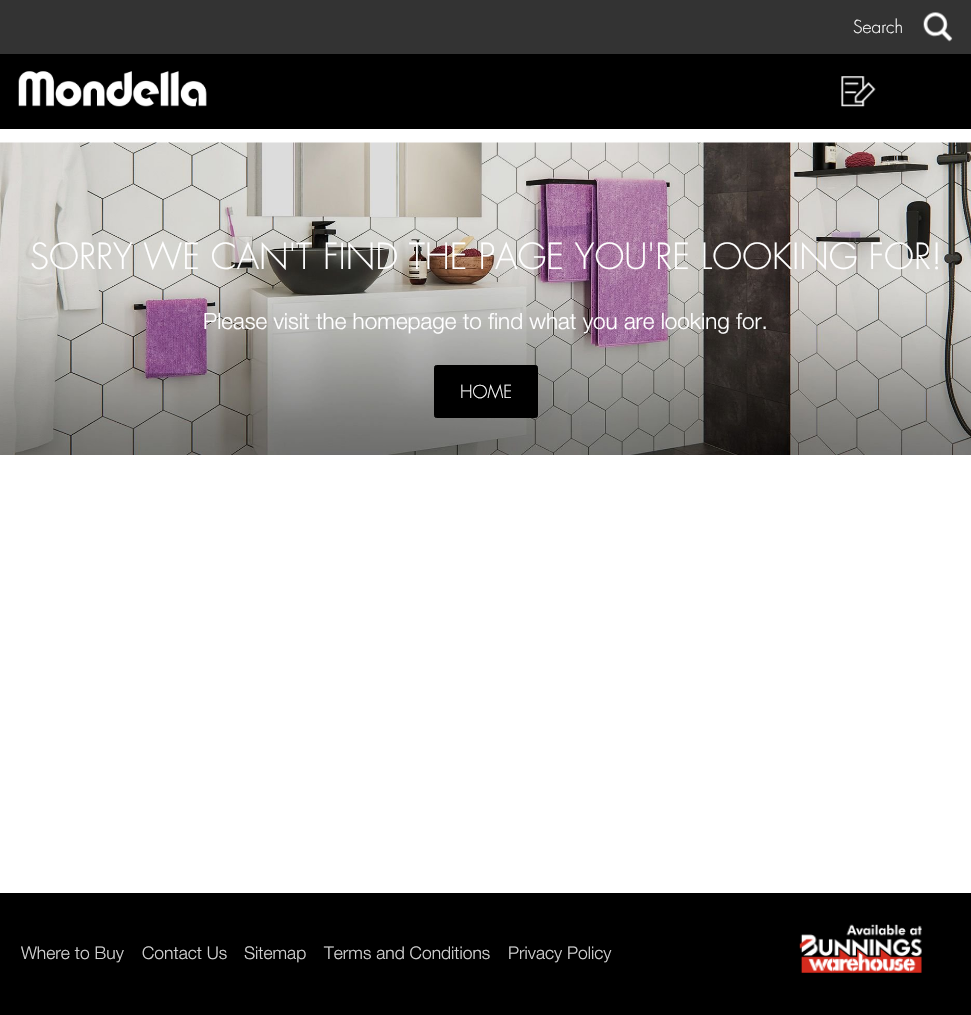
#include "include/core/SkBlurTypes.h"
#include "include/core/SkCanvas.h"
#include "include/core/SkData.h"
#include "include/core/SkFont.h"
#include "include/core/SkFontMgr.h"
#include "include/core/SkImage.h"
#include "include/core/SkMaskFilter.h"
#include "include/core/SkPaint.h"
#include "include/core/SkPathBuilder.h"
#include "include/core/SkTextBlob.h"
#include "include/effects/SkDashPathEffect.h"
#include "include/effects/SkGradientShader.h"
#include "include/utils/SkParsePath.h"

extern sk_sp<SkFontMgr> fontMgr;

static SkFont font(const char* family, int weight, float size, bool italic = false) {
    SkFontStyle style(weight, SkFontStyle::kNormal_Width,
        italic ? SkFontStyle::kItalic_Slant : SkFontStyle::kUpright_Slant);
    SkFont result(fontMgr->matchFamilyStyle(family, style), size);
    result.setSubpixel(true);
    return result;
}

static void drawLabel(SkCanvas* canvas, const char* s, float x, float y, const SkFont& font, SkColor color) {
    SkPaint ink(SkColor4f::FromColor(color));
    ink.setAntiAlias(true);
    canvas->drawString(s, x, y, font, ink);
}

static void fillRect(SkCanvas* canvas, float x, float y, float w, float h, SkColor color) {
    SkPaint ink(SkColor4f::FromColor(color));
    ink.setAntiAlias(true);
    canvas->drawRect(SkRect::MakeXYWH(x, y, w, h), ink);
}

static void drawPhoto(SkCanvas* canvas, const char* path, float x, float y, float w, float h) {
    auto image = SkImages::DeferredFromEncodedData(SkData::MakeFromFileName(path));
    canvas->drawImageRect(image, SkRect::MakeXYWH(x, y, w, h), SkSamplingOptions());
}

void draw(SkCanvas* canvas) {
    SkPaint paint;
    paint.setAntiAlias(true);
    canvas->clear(0xFFFFFFFF);
    fillRect(canvas, 0, 0, 971, 54, 0xFF333333);
    SkFont font1 = font("Futura", 300, 17.5f);
    drawLabel(canvas, "Search", 853, 33, font1, 0xFFFFFFFF);
    drawPhoto(canvas, "assets/img1.png", 923, 12, 30, 30);
    fillRect(canvas, 0, 54, 971, 75, 0xFF000000);
    drawPhoto(canvas, "assets/img2.png", 18, 71, 189, 36);
    drawPhoto(canvas, "assets/img3.png", 841, 76, 35, 31);
    drawPhoto(canvas, "assets/img4.png", 0, 142, 971, 313);
    SkFont font2 = font("Futura", 300, 35);
    drawLabel(canvas, "SORRY WE CAN'T FIND THE PAGE YOU'RE LOOKING FOR!", 30, 269, font2, 0xFFFFFFFF);
    SkFont font3 = font("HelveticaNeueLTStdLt", 300, 22.5f);
    drawLabel(canvas, "Please visit the homepage to find what you are looking for.", 203, 329, font3, 0xFFFFFFFF);
    paint.setColor(0xFF000000);
    canvas->drawRoundRect(SkRect::MakeXYWH(434.5f, 365.5f, 103, 52), 2, 2, paint);
    paint.setStroke(true);
    paint.setStrokeWidth(1);
    canvas->drawRoundRect(SkRect::MakeXYWH(434.5f, 365.5f, 103, 52), 2, 2, paint);
    drawLabel(canvas, "HOME", 460, 398, font1, 0xFFFFFFFF);
    fillRect(canvas, 0, 893, 971, 122, 0xFF000000);
    SkFont font4 = font("HelveticaNeueLTStdLt", 300, 17.5f);
    drawLabel(canvas, "Where to Buy", 21, 959, font4, 0xFFD1D1D1);
    drawLabel(canvas, "Contact Us", 142, 959, font4, 0xFFD1D1D1);
    drawLabel(canvas, "Sitemap", 244, 959, font4, 0xFFD1D1D1);
    drawLabel(canvas, "Terms and Conditions", 324, 959, font4, 0xFFD1D1D1);
    drawLabel(canvas, "Privacy Policy", 508, 959, font4, 0xFFD1D1D1);
    drawPhoto(canvas, "assets/img5.png", 799, 924, 123, 49);
}
